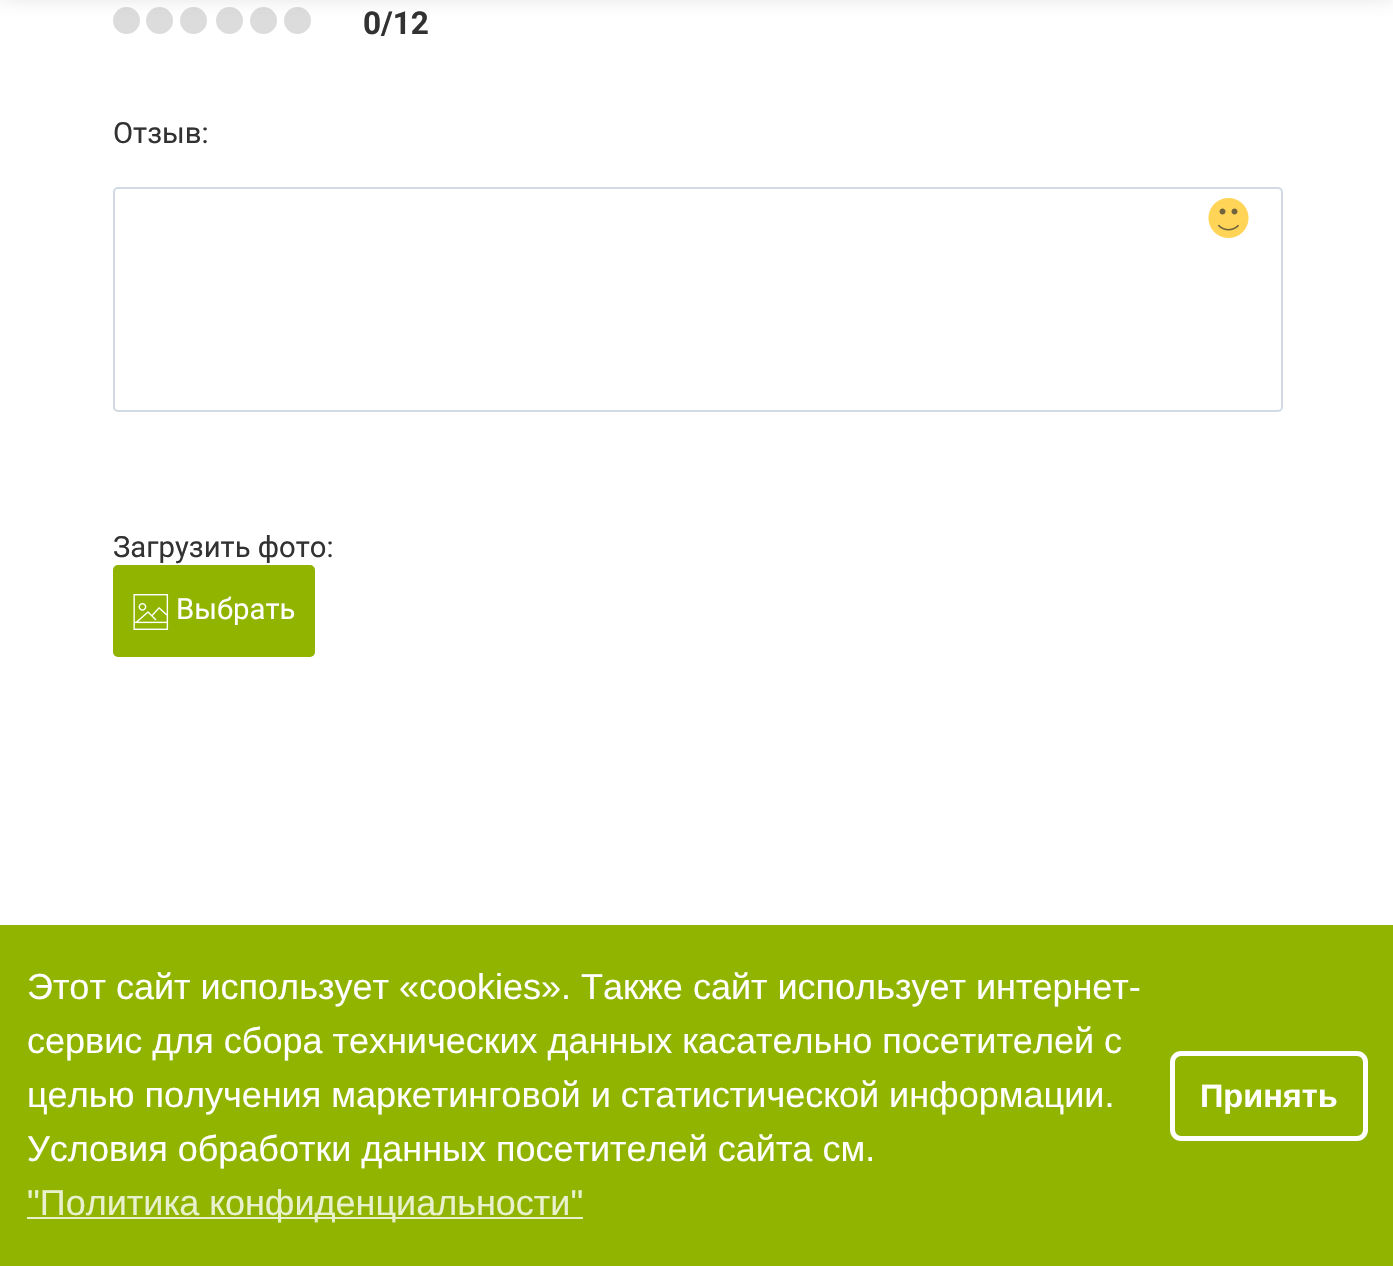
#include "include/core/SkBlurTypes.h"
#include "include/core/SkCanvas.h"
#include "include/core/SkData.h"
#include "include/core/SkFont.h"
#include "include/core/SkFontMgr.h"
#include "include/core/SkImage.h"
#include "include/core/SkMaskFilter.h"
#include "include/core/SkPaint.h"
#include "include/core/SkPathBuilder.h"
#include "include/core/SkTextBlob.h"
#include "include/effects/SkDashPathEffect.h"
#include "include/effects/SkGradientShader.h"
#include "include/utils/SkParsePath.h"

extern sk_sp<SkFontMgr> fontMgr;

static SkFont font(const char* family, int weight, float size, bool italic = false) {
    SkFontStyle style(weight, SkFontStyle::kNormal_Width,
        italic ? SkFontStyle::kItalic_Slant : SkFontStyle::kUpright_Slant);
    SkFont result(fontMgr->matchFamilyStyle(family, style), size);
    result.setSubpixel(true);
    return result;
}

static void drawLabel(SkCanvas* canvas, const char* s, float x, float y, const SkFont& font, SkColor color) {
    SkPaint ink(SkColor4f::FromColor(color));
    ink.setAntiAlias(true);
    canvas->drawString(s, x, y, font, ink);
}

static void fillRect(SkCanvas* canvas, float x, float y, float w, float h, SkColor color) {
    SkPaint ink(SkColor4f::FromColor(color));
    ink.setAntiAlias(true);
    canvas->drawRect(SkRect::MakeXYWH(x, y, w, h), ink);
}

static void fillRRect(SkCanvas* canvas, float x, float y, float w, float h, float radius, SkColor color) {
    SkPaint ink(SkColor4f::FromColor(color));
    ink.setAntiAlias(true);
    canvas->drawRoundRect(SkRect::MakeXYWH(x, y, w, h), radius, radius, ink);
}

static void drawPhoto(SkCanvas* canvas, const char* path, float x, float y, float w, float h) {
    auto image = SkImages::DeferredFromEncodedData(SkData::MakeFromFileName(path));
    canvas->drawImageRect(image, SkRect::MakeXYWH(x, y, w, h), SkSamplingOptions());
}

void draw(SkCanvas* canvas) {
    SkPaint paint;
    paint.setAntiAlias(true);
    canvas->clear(0xFFFFFFFF);
    paint.setColor(0xFFDCDCDC);
    canvas->drawCircle(126.5f, 20.5f, 13.5f, paint);
    canvas->drawCircle(159.5f, 20.5f, 13.5f, paint);
    canvas->drawCircle(193.5f, 20.5f, 13.5f, paint);
    canvas->drawCircle(229.5f, 20.5f, 13.5f, paint);
    canvas->drawCircle(263.5f, 20.5f, 13.5f, paint);
    canvas->drawCircle(297.5f, 20.5f, 13.5f, paint);
    paint.setColor(0x334E4E4E);
    paint.setMaskFilter(SkMaskFilter::MakeBlur(kNormal_SkBlurStyle, 11));
    canvas->drawRect(SkRect::MakeXYWH(0, -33, 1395, 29), paint);
    paint.setMaskFilter(nullptr);
    SkFont font1 = font("Roboto", 700, 31.5f);
    drawLabel(canvas, "0/12", 363, 34, font1, 0xFF323232);
    SkFont font2 = font("Roboto", 400, 29.25f);
    drawLabel(canvas, "Отзыв:", 113, 143, font2, 0xFF323232);
    paint.setStroke(true);
    paint.setStrokeWidth(2);
    paint.setColor(0xFFD2DBE3);
    canvas->drawRoundRect(SkRect::MakeXYWH(114, 188, 1168, 223), 4, 4, paint);
    drawPhoto(canvas, "assets/img1.png", 1208, 198, 41, 40);
    drawLabel(canvas, "Загрузить фото:", 113, 557, font2, 0xFF323232);
    fillRRect(canvas, 113, 565, 202, 92, 5, 0xFF90B400);
    drawPhoto(canvas, "assets/img2.png", 133, 594, 36, 36);
    drawLabel(canvas, "Выбрать", 176, 619, font2, 0xFFFFFFFF);
    fillRect(canvas, 0, 925, 1393, 341, 0xFF90B400);
    SkFont font3 = font("Liberation Sans", 400, 36);
    drawLabel(canvas, "Этот сайт использует «cookies». Также сайт использует интернет-", 27, 999, font3, 0xFFFFFFFF);
    drawLabel(canvas, "сервис для сбора технических данных касательно посетителей с", 27, 1053, font3, 0xFFFFFFFF);
    drawLabel(canvas, "целью получения маркетинговой и статистической информации.", 27, 1107, font3, 0xFFFFFFFF);
    drawLabel(canvas, "Условия обработки данных посетителей сайта см.", 27, 1161, font3, 0xFFFFFFFF);
    fillRect(canvas, 27, 1217, 556, 2, 0xFFE9F0CC);
    drawLabel(canvas, "\"Политика конфиденциальности\"", 27, 1215, font3, 0xFFE9F0CC);
    paint.setStrokeWidth(5);
    paint.setColor(0xFFFFFFFF);
    canvas->drawRoundRect(SkRect::MakeXYWH(1172.5f, 1053.5f, 193, 85), 8.5f, 8.5f, paint);
    SkFont font4 = font("Liberation Sans", 700, 32.5f);
    drawLabel(canvas, "Принять", 1200, 1107, font4, 0xFFFFFFFF);
}
